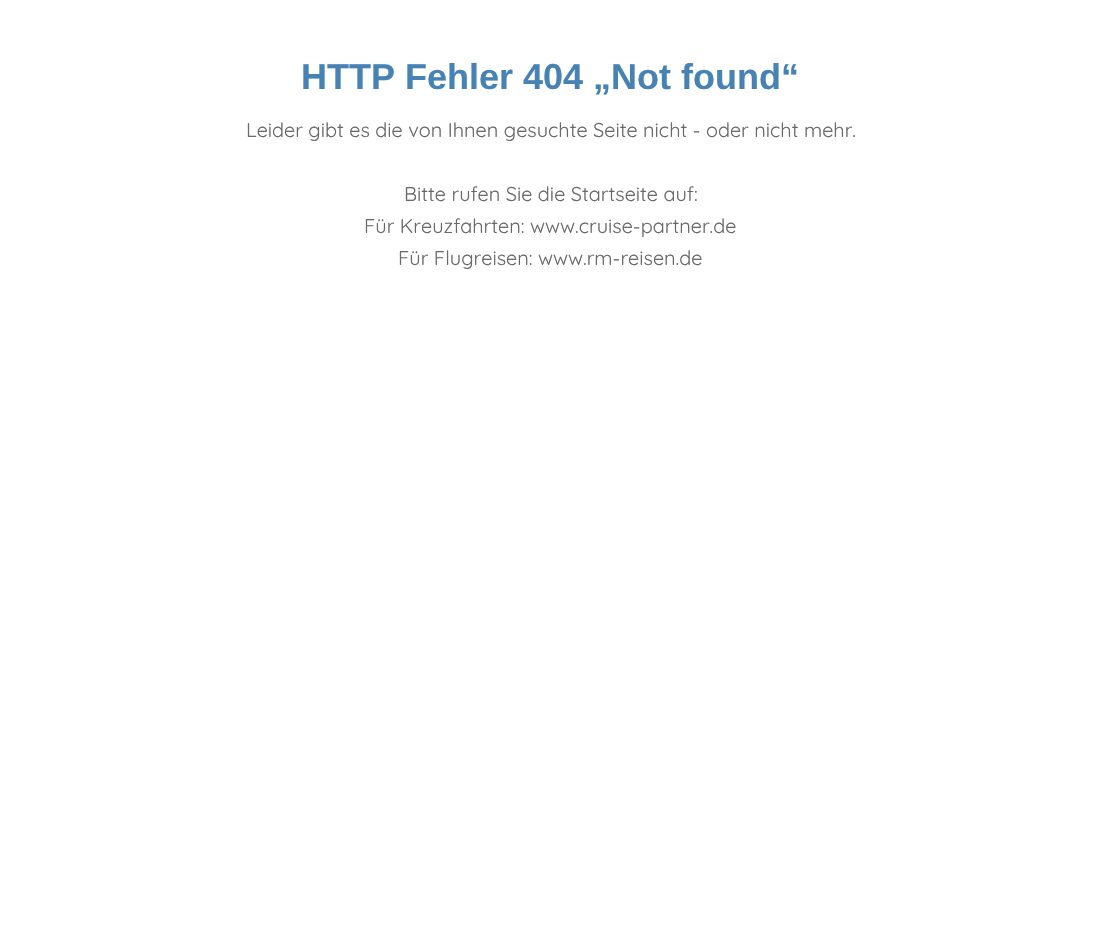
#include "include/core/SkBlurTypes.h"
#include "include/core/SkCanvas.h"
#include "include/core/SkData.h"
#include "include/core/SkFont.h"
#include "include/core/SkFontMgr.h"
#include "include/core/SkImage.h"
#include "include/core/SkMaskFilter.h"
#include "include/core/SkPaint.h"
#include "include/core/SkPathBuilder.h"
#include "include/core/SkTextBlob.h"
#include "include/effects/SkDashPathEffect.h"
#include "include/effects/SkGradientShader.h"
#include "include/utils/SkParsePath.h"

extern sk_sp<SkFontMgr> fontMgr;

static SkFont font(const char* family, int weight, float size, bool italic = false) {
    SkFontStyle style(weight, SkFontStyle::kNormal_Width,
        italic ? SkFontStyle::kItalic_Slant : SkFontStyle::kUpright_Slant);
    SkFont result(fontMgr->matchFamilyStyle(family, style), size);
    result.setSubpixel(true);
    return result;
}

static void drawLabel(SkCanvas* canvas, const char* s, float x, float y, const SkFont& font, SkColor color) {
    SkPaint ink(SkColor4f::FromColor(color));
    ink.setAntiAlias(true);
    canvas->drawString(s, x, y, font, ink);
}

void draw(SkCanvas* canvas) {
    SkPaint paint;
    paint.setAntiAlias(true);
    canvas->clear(0xFFFFFFFF);
    SkFont font1 = font("Liberation Sans", 700, 36);
    drawLabel(canvas, "HTTP Fehler 404 „Not found“", 301, 89, font1, 0xFF4682B4);
    SkFont font2 = font("Quicksand", 300, 20);
    drawLabel(canvas, "Leider gibt es die von Ihnen gesuchte Seite nicht - oder nicht mehr.", 246, 137, font2, 0xFF696969);
    drawLabel(canvas, "Bitte rufen Sie die Startseite auf:", 404, 201, font2, 0xFF696969);
    drawLabel(canvas, "Für Kreuzfahrten: www.cruise-partner.de", 364, 233, font2, 0xFF696969);
    drawLabel(canvas, "Für Flugreisen: www.rm-reisen.de", 398, 265, font2, 0xFF696969);
}
